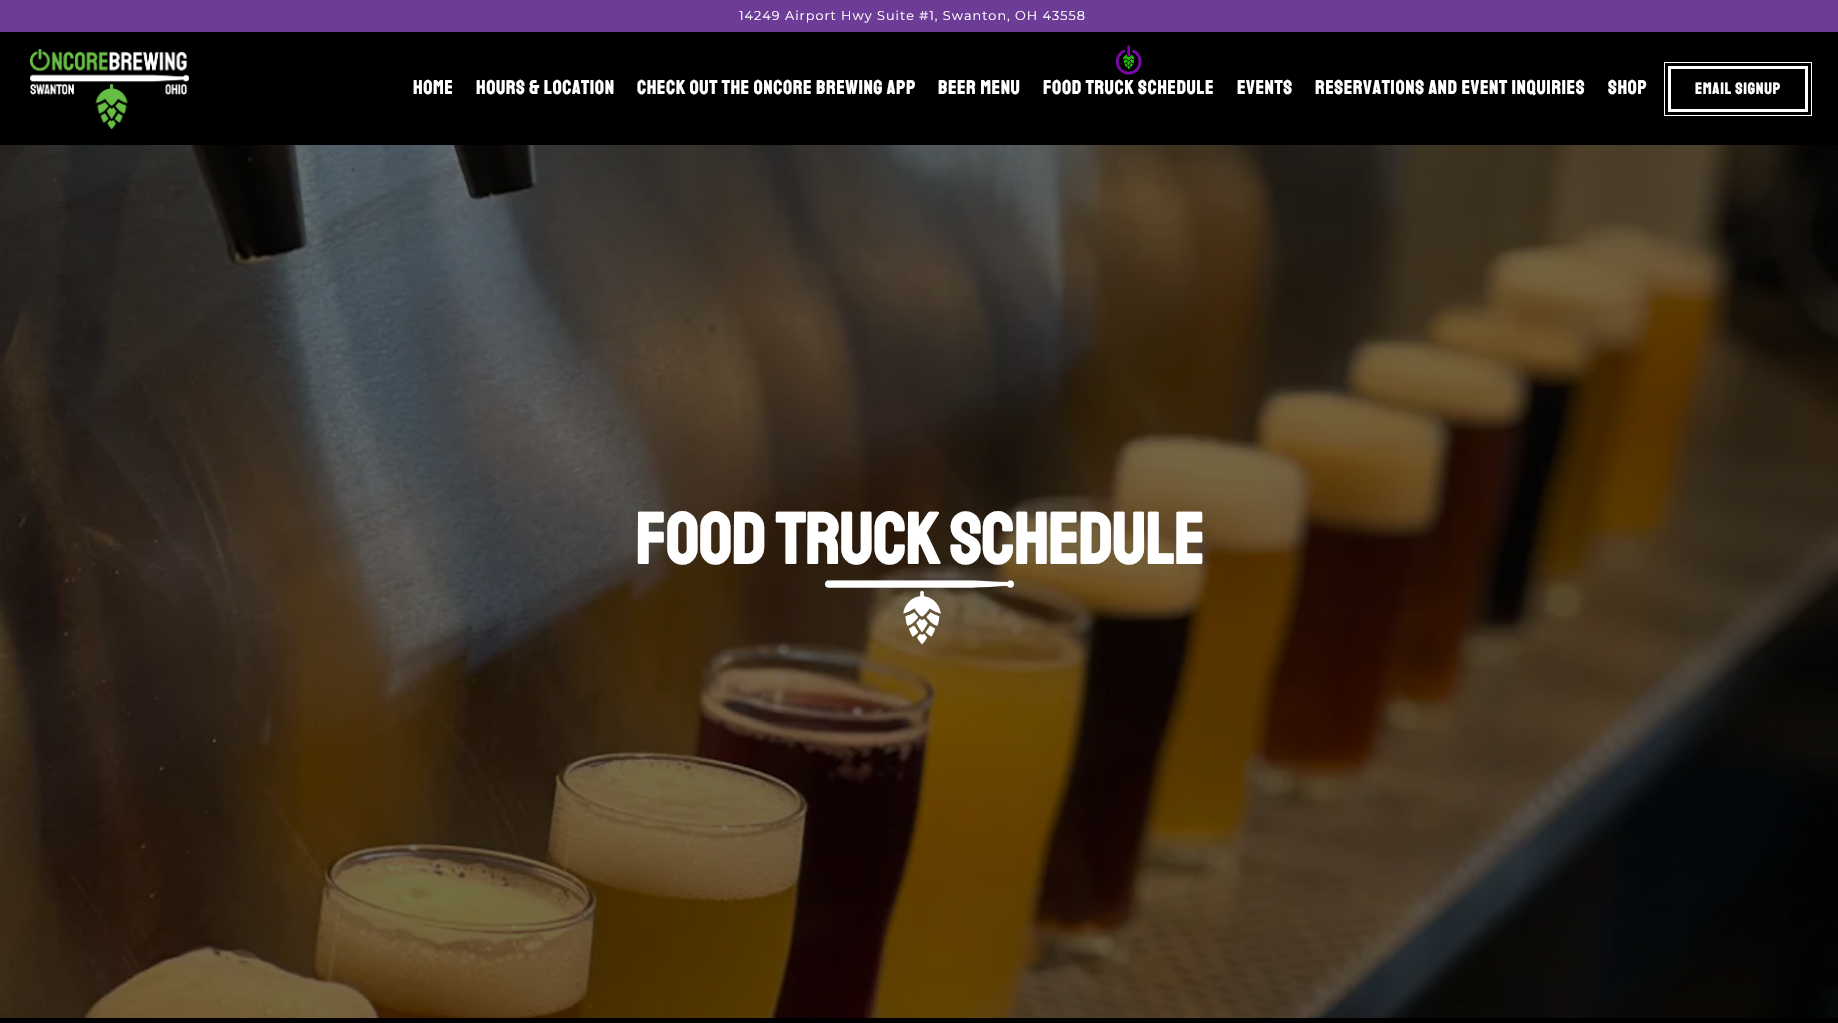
#include "include/core/SkBlurTypes.h"
#include "include/core/SkCanvas.h"
#include "include/core/SkData.h"
#include "include/core/SkFont.h"
#include "include/core/SkFontMgr.h"
#include "include/core/SkImage.h"
#include "include/core/SkMaskFilter.h"
#include "include/core/SkPaint.h"
#include "include/core/SkPathBuilder.h"
#include "include/core/SkTextBlob.h"
#include "include/effects/SkDashPathEffect.h"
#include "include/effects/SkGradientShader.h"
#include "include/utils/SkParsePath.h"

extern sk_sp<SkFontMgr> fontMgr;

static SkFont font(const char* family, int weight, float size, bool italic = false) {
    SkFontStyle style(weight, SkFontStyle::kNormal_Width,
        italic ? SkFontStyle::kItalic_Slant : SkFontStyle::kUpright_Slant);
    SkFont result(fontMgr->matchFamilyStyle(family, style), size);
    result.setSubpixel(true);
    return result;
}

static void drawLabel(SkCanvas* canvas, const char* s, float x, float y, const SkFont& font, SkColor color) {
    SkPaint ink(SkColor4f::FromColor(color));
    ink.setAntiAlias(true);
    canvas->drawString(s, x, y, font, ink);
}

static void drawTracked(SkCanvas* canvas, const char* s, float x, float y, const SkFont& font, const SkPaint& ink, float letter, float word) {
    std::vector<SkGlyphID> glyphs(font.countText(s, strlen(s), SkTextEncoding::kUTF8));
    std::vector<float> xs(glyphs.size());
    font.textToGlyphs(s, strlen(s), SkTextEncoding::kUTF8, glyphs);
    font.getXPos(glyphs, xs, x);
    float extra = 0;
    for (size_t i = 0; i < glyphs.size(); i++) {
        xs[i] += extra;
        extra += letter + word * (glyphs[i] == font.unicharToGlyph(' '));
    }
    canvas->drawTextBlob(SkTextBlob::MakeFromPosHGlyphs(glyphs, xs, y, font), 0, 0, ink);
}

static void fillRect(SkCanvas* canvas, float x, float y, float w, float h, SkColor color) {
    SkPaint ink(SkColor4f::FromColor(color));
    ink.setAntiAlias(true);
    canvas->drawRect(SkRect::MakeXYWH(x, y, w, h), ink);
}

static void drawPhoto(SkCanvas* canvas, const char* path, float x, float y, float w, float h) {
    auto image = SkImages::DeferredFromEncodedData(SkData::MakeFromFileName(path));
    canvas->drawImageRect(image, SkRect::MakeXYWH(x, y, w, h), SkSamplingOptions());
}

void draw(SkCanvas* canvas) {
    SkPaint paint;
    paint.setAntiAlias(true);
    canvas->clear(0xFF000000);
    fillRect(canvas, 0, 0, 1838, 32, 0xFF6D3C97);
    SkFont font1 = font("Montserrat", 400, 12.8f);
    paint.setColor(0xFFFFFFFF);
    drawTracked(canvas, "14249 Airport Hwy Suite #1, Swanton, OH 43558", 739, 20, font1, paint, 1, 0);
    drawPhoto(canvas, "assets/img1.png", 30, 49, 159, 80);
    SkFont font2 = font("Staatliches", 700, 19.25f);
    drawTracked(canvas, "HOME", 413, 94, font2, paint, 1, 0);
    drawTracked(canvas, "HOURS & LOCATION", 476, 94, font2, paint, 1, 0);
    drawTracked(canvas, "CHECK OUT THE ONCORE BREWING APP", 637, 94, font2, paint, 1, 0);
    drawTracked(canvas, "BEER MENU", 938, 94, font2, paint, 1, 0);
    drawPhoto(canvas, "assets/img2.png", 1115, 45, 27, 30);
    drawTracked(canvas, "FOOD TRUCK SCHEDULE", 1043, 94, font2, paint, 1, 0);
    drawTracked(canvas, "EVENTS", 1237, 94, font2, paint, 1, 0);
    drawTracked(canvas, "RESERVATIONS AND EVENT INQUIRIES", 1315, 94, font2, paint, 1, 0);
    drawTracked(canvas, "SHOP", 1608, 94, font2, paint, 1, 0);
    paint.setStroke(true);
    paint.setStrokeWidth(3);
    canvas->drawRect(SkRect::MakeXYWH(1669.5f, 67.5f, 137, 43), paint);
    paint.setStrokeWidth(1);
    canvas->drawRect(SkRect::MakeXYWH(1664.5f, 62.5f, 147, 53), paint);
    SkFont font3 = font("Staatliches", 700, 16);
    paint.setStroke(false);
    drawTracked(canvas, "EMAIL SIGNUP", 1695, 94, font3, paint, 1, 0);
    drawPhoto(canvas, "assets/img3.png", 0, 145, 1838, 873);
    SkFont font4 = font("Staatliches", 700, 72);
    drawLabel(canvas, "FOOD TRUCK SCHEDULE", 635, 564, font4, 0xFFFFFFFF);
    drawPhoto(canvas, "assets/img4.png", 825, 580, 189, 65);
}
